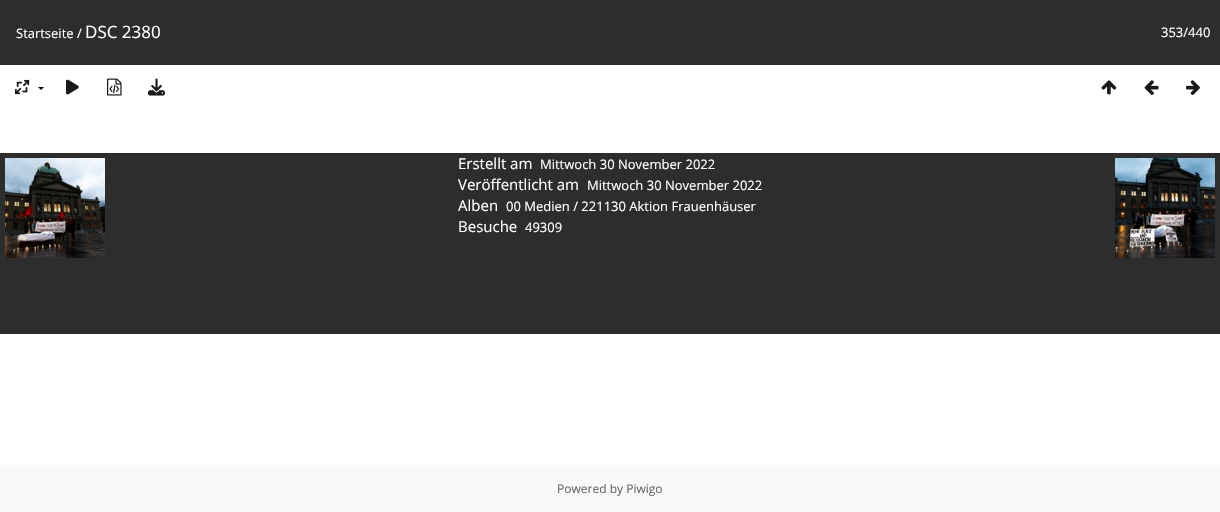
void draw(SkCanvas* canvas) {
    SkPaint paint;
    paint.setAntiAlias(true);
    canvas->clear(0xFFFFFFFF);
    paint.setColor(0xFF2D2D2D);
    canvas->drawRect(SkRect::MakeXYWH(0, 0, 1220, 65), paint);
    SkFont font1(fontMgr->matchFamilyStyle("Open Sans", SkFontStyle::Normal()), 13);
    font1.setSubpixel(true);
    paint.setColor(0xFFFFFFFF);
    canvas->drawString("Startseite /", 16, 38, font1, paint);
    SkFont font2(fontMgr->matchFamilyStyle("Open Sans", SkFontStyle::Normal()), 17);
    font2.setSubpixel(true);
    canvas->drawString("DSC 2380", 85, 38, font2, paint);
    canvas->drawString("353/440", 1161, 37, font1, paint);
    canvas->drawImageRect(SkImages::DeferredFromEncodedData(SkData::MakeFromFileName("img1.png")), SkRect::MakeXYWH(15, 79, 15, 16), SkSamplingOptions());
    paint.setColor(0xFF000000);
    canvas->drawPath(SkPathBuilder().moveTo(38, 87).lineTo(44, 87).lineTo(41, 90).close().detach(), paint);
    canvas->drawImageRect(SkImages::DeferredFromEncodedData(SkData::MakeFromFileName("img2.png")), SkRect::MakeXYWH(66, 79, 13, 16), SkSamplingOptions());
    canvas->drawImageRect(SkImages::DeferredFromEncodedData(SkData::MakeFromFileName("img3.png")), SkRect::MakeXYWH(107, 78, 15, 18), SkSamplingOptions());
    canvas->drawImageRect(SkImages::DeferredFromEncodedData(SkData::MakeFromFileName("img4.png")), SkRect::MakeXYWH(148, 78, 17, 18), SkSamplingOptions());
    canvas->drawImageRect(SkImages::DeferredFromEncodedData(SkData::MakeFromFileName("img5.png")), SkRect::MakeXYWH(1101, 80, 16, 15), SkSamplingOptions());
    canvas->drawImageRect(SkImages::DeferredFromEncodedData(SkData::MakeFromFileName("img6.png")), SkRect::MakeXYWH(1144, 80, 15, 15), SkSamplingOptions());
    canvas->drawImageRect(SkImages::DeferredFromEncodedData(SkData::MakeFromFileName("img7.png")), SkRect::MakeXYWH(1186, 80, 14, 15), SkSamplingOptions());
    paint.setColor(0xFF2D2D2D);
    canvas->drawRect(SkRect::MakeXYWH(0, 153, 1220, 181), paint);
    SkFont font3(fontMgr->matchFamilyStyle("Open Sans", SkFontStyle::Normal()), 15);
    font3.setSubpixel(true);
    paint.setColor(0xFFFFFFFF);
    canvas->drawString("Erstellt am", 458, 169, font3, paint);
    canvas->drawString("Mittwoch 30 November 2022", 540, 169, font1, paint);
    canvas->drawString("Veröffentlicht am", 458, 190, font3, paint);
    canvas->drawString("Mittwoch 30 November 2022", 587, 190, font1, paint);
    canvas->drawString("Alben", 458, 211, font3, paint);
    canvas->drawString("00 Medien / 221130 Aktion Frauenhäuser", 506, 211, font1, paint);
    canvas->drawString("Besuche", 458, 232, font3, paint);
    canvas->drawString("49309", 525, 232, font1, paint);
    canvas->drawImageRect(SkImages::DeferredFromEncodedData(SkData::MakeFromFileName("img8.png")), SkRect::MakeXYWH(5, 158, 100, 100), SkSamplingOptions());
    canvas->drawImageRect(SkImages::DeferredFromEncodedData(SkData::MakeFromFileName("img9.png")), SkRect::MakeXYWH(1115, 158, 100, 100), SkSamplingOptions());
    paint.setColor(0xFFF9F9F9);
    canvas->drawRect(SkRect::MakeXYWH(0, 465, 1220, 47), paint);
    SkFont font4(fontMgr->matchFamilyStyle("Open Sans", SkFontStyle::Normal()), 12);
    font4.setSubpixel(true);
    paint.setColor(0xFF666666);
    canvas->drawString("Powered by Piwigo", 557, 493, font4, paint);
}
